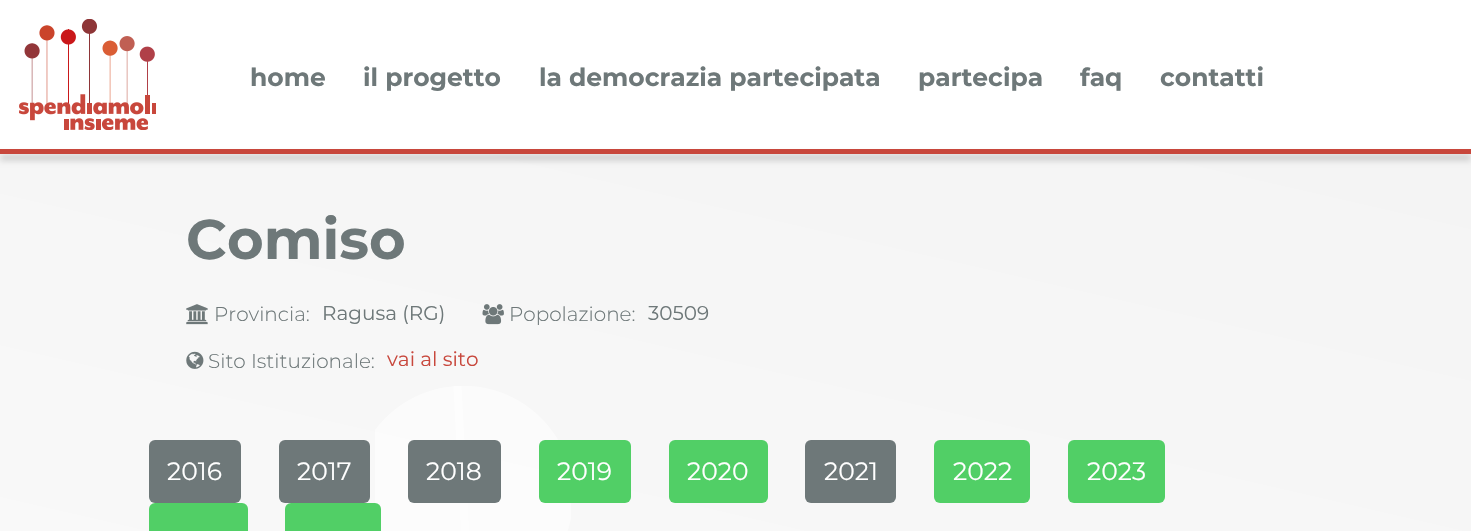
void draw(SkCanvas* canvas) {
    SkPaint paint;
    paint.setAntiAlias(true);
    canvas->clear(0xFFFFFFFF);
    canvas->drawImageRect(SkImages::DeferredFromEncodedData(SkData::MakeFromFileName("img1.png")), SkRect::MakeXYWH(19, 19, 137, 111), SkSamplingOptions());
    SkFont font1(fontMgr->matchFamilyStyle("Montserrat", SkFontStyle::Bold()), 25);
    font1.setSubpixel(true);
    paint.setColor(0xFF6E7879);
    canvas->drawString("home", 250, 86, font1, paint);
    canvas->drawString("il progetto", 363, 86, font1, paint);
    canvas->drawString("la democrazia partecipata", 539, 86, font1, paint);
    canvas->drawString("partecipa", 918, 86, font1, paint);
    canvas->drawString("faq", 1080, 86, font1, paint);
    canvas->drawString("contatti", 1160, 86, font1, paint);
    {
        const SkColor colors[] = {0xFFF4F4F4, 0xFFFFFFFF};
        const float stops[] = {0, 1};
        const SkPoint ends[] = {{918, 26}, {553, 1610}};
        paint.setShader(SkGradientShader::MakeLinear(ends, colors, stops, 2, SkTileMode::kClamp));
        paint.setAlpha(255);
    }
    canvas->drawRect(SkRect::MakeXYWH(0, 154, 1471, 377), paint);
    paint.setShader(nullptr);
    paint.setColor(0x33000000);
    paint.setMaskFilter(SkMaskFilter::MakeBlur(kNormal_SkBlurStyle, 3));
    canvas->drawRect(SkRect::MakeXYWH(0, 155, 1471, 5), paint);
    paint.setMaskFilter(nullptr);
    paint.setColor(0xFFC8473C);
    canvas->drawRect(SkRect::MakeXYWH(0, 149, 1471, 5), paint);
    SkFont font2(fontMgr->matchFamilyStyle("Montserrat", SkFontStyle::Bold()), 56);
    font2.setSubpixel(true);
    paint.setColor(0xFF6E7879);
    canvas->drawString("Comiso", 186, 259, font2, paint);
    canvas->drawImageRect(SkImages::DeferredFromEncodedData(SkData::MakeFromFileName("img2.png")), SkRect::MakeXYWH(186, 304, 22, 21), SkSamplingOptions());
    SkFont font3(fontMgr->matchFamilyStyle("Montserrat", SkFontStyle(300, SkFontStyle::kNormal_Width, SkFontStyle::kUpright_Slant)), 20);
    font3.setSubpixel(true);
    canvas->drawString("Provincia:", 214, 321, font3, paint);
    SkFont font4(fontMgr->matchFamilyStyle("Montserrat", SkFontStyle::Normal()), 20);
    font4.setSubpixel(true);
    canvas->drawString("Ragusa (RG)", 322, 320, font4, paint);
    canvas->drawImageRect(SkImages::DeferredFromEncodedData(SkData::MakeFromFileName("img3.png")), SkRect::MakeXYWH(482, 304, 22, 21), SkSamplingOptions());
    canvas->drawString("Popolazione:", 509, 321, font3, paint);
    canvas->drawString("30509", 648, 320, font4, paint);
    canvas->drawImageRect(SkImages::DeferredFromEncodedData(SkData::MakeFromFileName("img4.png")), SkRect::MakeXYWH(186, 351, 18, 18), SkSamplingOptions());
    canvas->drawString("Sito Istituzionale:", 208, 368, font3, paint);
    paint.setColor(0xFFC8473C);
    canvas->drawString("vai al sito", 387, 366, font4, paint);
    paint.setColor(0xFF6E7879);
    canvas->drawRoundRect(SkRect::MakeXYWH(149, 440, 92, 63), 6, 6, paint);
    SkFont font5(fontMgr->matchFamilyStyle("Montserrat", SkFontStyle::Normal()), 25);
    font5.setSubpixel(true);
    paint.setColor(0xFFFFFFFF);
    canvas->drawString("2016", 167, 480, font5, paint);
    paint.setColor(0xFF6E7879);
    canvas->drawRoundRect(SkRect::MakeXYWH(279, 440, 91, 63), 6, 6, paint);
    paint.setColor(0xFFFFFFFF);
    canvas->drawString("2017", 297, 480, font5, paint);
    canvas->drawImageRect(SkImages::DeferredFromEncodedData(SkData::MakeFromFileName("img5.png")), SkRect::MakeXYWH(375, 386, 196, 145), SkSamplingOptions());
    paint.setColor(0xFF6E7879);
    canvas->drawRoundRect(SkRect::MakeXYWH(408, 440, 93, 63), 6, 6, paint);
    paint.setColor(0xFFFFFFFF);
    canvas->drawString("2018", 426, 480, font5, paint);
    paint.setColor(0xFF51CF66);
    canvas->drawRoundRect(SkRect::MakeXYWH(539, 440, 92, 63), 6, 6, paint);
    paint.setColor(0xFFFFFFFF);
    canvas->drawString("2019", 557, 480, font5, paint);
    paint.setColor(0xFF51CF66);
    canvas->drawRoundRect(SkRect::MakeXYWH(669, 440, 99, 63), 6, 6, paint);
    paint.setColor(0xFFFFFFFF);
    canvas->drawString("2020", 687, 480, font5, paint);
    paint.setColor(0xFF6E7879);
    canvas->drawRoundRect(SkRect::MakeXYWH(805, 440, 91, 63), 6, 6, paint);
    paint.setColor(0xFFFFFFFF);
    canvas->drawString("2021", 824, 480, font5, paint);
    paint.setColor(0xFF51CF66);
    canvas->drawRoundRect(SkRect::MakeXYWH(934, 440, 96, 63), 6, 6, paint);
    paint.setColor(0xFFFFFFFF);
    canvas->drawString("2022", 953, 480, font5, paint);
    paint.setColor(0xFF51CF66);
    canvas->drawRoundRect(SkRect::MakeXYWH(1068, 440, 97, 63), 6, 6, paint);
    paint.setColor(0xFFFFFFFF);
    canvas->drawString("2023", 1087, 480, font5, paint);
    paint.setColor(0xFF51CF66);
    canvas->drawRoundRect(SkRect::MakeXYWH(149, 503, 99, 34), 6, 6, paint);
    canvas->drawRoundRect(SkRect::MakeXYWH(285, 503, 96, 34), 6, 6, paint);
}
